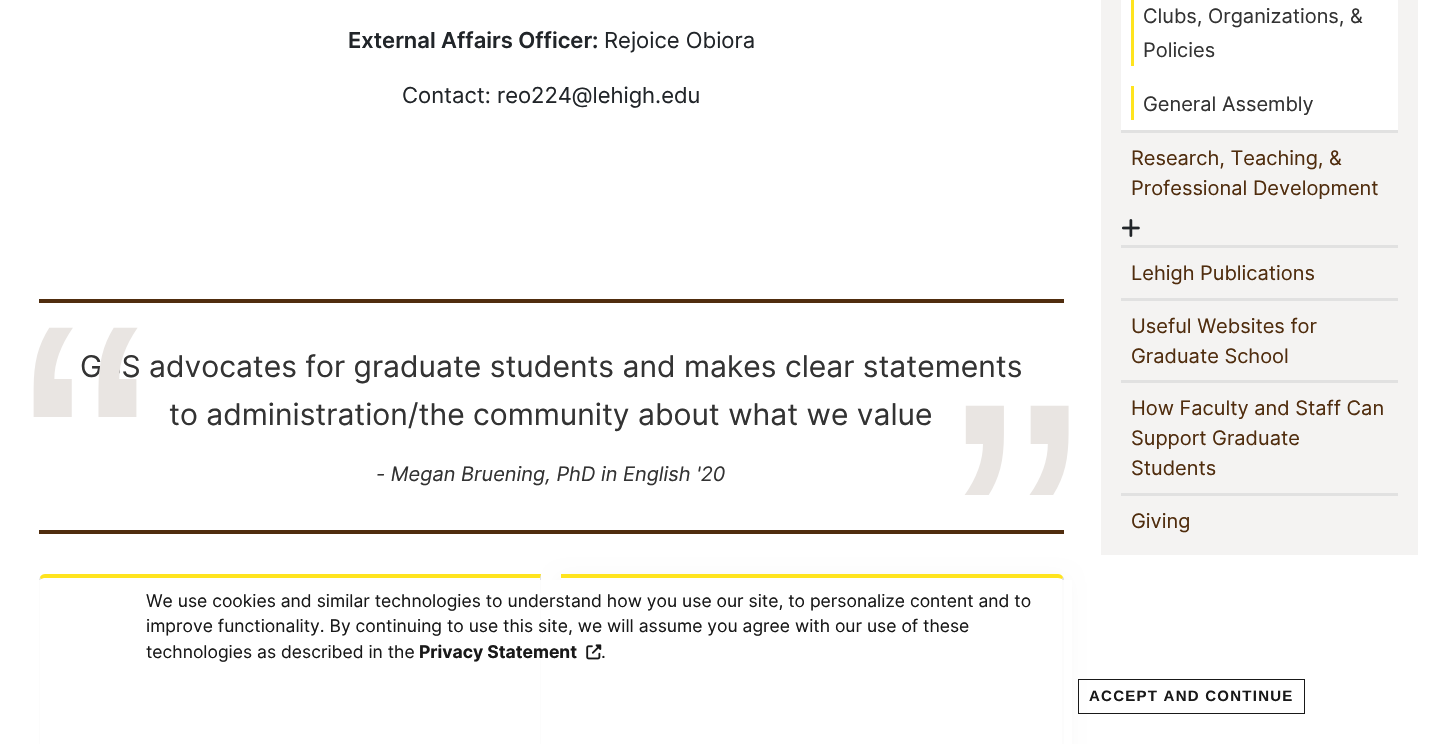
void draw(SkCanvas* canvas) {
    SkPaint paint;
    paint.setAntiAlias(true);
    auto spacedText = [&](const char* s, float x, float y, const SkFont& font, const SkPaint& ink, float letter, float word) {
        std::vector<SkGlyphID> glyphs(font.countText(s, strlen(s), SkTextEncoding::kUTF8));
        std::vector<float> xs(glyphs.size());
        font.textToGlyphs(s, strlen(s), SkTextEncoding::kUTF8, glyphs);
        font.getXPos(glyphs, xs, x);
        float extra = 0;
        for (size_t i = 0; i < glyphs.size(); i++) {
            xs[i] += extra;
            extra += letter + word * (glyphs[i] == font.unicharToGlyph(' '));
        }
        canvas->drawTextBlob(SkTextBlob::MakeFromPosHGlyphs(glyphs, xs, y, font), 0, 0, ink);
    };
    canvas->clear(0xFFFFFFFF);
    SkFont font1(fontMgr->matchFamilyStyle("Inter", SkFontStyle(600, SkFontStyle::kNormal_Width, SkFontStyle::kUpright_Slant)), 22);
    font1.setSubpixel(true);
    paint.setColor(0xFF212529);
    canvas->drawString("External Affairs Officer:", 348, 48, font1, paint);
    SkFont font2(fontMgr->matchFamilyStyle("Inter", SkFontStyle::Normal()), 22);
    font2.setSubpixel(true);
    canvas->drawString("Rejoice Obiora", 604, 48, font2, paint);
    canvas->drawString("Contact: reo224@lehigh.edu", 402, 103, font2, paint);
    paint.setColor(0xFF502D0E);
    canvas->drawRect(SkRect::MakeXYWH(39, 299, 1025, 4), paint);
    canvas->drawRect(SkRect::MakeXYWH(39, 530, 1025, 4), paint);
    SkFont font3(fontMgr->matchFamilyStyle("Inter", SkFontStyle::Normal()), 30);
    font3.setSubpixel(true);
    paint.setColor(0xFF333333);
    canvas->drawString("GSS advocates for graduate students and makes clear statements", 80, 377, font3, paint);
    SkFont font4(fontMgr->matchFamilyStyle("Liberation Sans", SkFontStyle::Normal()), 400);
    font4.setSubpixel(true);
    paint.setColor(0xFFE9E5E2);
    canvas->drawString("“", 19, 603, font4, paint);
    paint.setColor(0xFF333333);
    canvas->drawString("to administration/the community about what we value", 169, 425, font3, paint);
    SkFont font5(fontMgr->matchFamilyStyle("Inter", SkFontStyle::Italic()), 20);
    font5.setSubpixel(true);
    canvas->drawString("- Megan Bruening, PhD in English '20", 376, 481, font5, paint);
    paint.setColor(0xFFE9E5E2);
    canvas->drawString("”", 950, 681, font4, paint);
    paint.setColor(0xFFFFE41E);
    canvas->drawPath(SkPathBuilder().moveTo(45, 574).cubicTo(43, 574, 41, 575, 40, 577).lineTo(41, 579).lineTo(44, 578).lineTo(540, 578).lineTo(541, 574).close().detach(), paint);
    paint.setColor(0x1F000000);
    canvas->drawPath(SkPathBuilder().moveTo(541, 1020).lineTo(541, 574).lineTo(540, 578).lineTo(540, 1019).close().detach(), paint);
    canvas->drawPath(SkPathBuilder().moveTo(40, 577).lineTo(39, 580).lineTo(39, 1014).cubicTo(39, 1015, 40, 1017, 41, 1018).lineTo(41, 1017).cubicTo(40, 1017, 40, 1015, 40, 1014).lineTo(40, 580).lineTo(41, 579).close().detach(), paint);
    paint.setColor(0xFFF0F0F0);
    paint.setMaskFilter(SkMaskFilter::MakeBlur(kNormal_SkBlurStyle, 9.5f));
    canvas->drawRoundRect(SkRect::MakeXYWH(561, 580, 503, 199), 6, 6, paint);
    paint.setMaskFilter(nullptr);
    paint.setColor(0xFFFFFFFF);
    canvas->drawPath(SkPathBuilder().moveTo(561, 574).lineTo(1058, 574).cubicTo(1061.5f, 574, 1064, 576.5f, 1064, 580).lineTo(1064, 744).cubicTo(1064, 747.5f, 1061.5f, 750, 1058, 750).lineTo(561, 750).close().detach(), paint);
    paint.setColor(0xFFFFE41E);
    canvas->drawPath(SkPathBuilder().moveTo(561, 578).lineTo(561, 574).lineTo(1058, 574).cubicTo(1060, 574, 1062, 575, 1063, 577).lineTo(1062, 579).cubicTo(1061, 579, 1060, 578, 1058, 578).close().detach(), paint);
    paint.setColor(0x1F000000);
    canvas->drawPath(SkPathBuilder().moveTo(1061, 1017).lineTo(1062, 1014).lineTo(1062, 579).lineTo(1063, 577).lineTo(1064, 578).lineTo(1064, 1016).lineTo(1062, 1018).close().detach(), paint);
    paint.setColor(0xFFF4F3F2);
    canvas->drawRect(SkRect::MakeXYWH(1101, 0, 317, 555), paint);
    paint.setColor(0xFFE1E1E1);
    canvas->drawRect(SkRect::MakeXYWH(1121, 130, 277, 3), paint);
    paint.setColor(0xFFFFFFFF);
    canvas->drawRect(SkRect::MakeXYWH(1121, 0, 277, 130), paint);
    paint.setColor(0xFFFFE41E);
    canvas->drawRect(SkRect::MakeXYWH(1131, 0, 3, 66), paint);
    SkFont font6(fontMgr->matchFamilyStyle("Inter", SkFontStyle::Normal()), 20);
    font6.setSubpixel(true);
    paint.setColor(0xFF333333);
    canvas->drawString("Clubs, Organizations, &", 1143, 23, font6, paint);
    canvas->drawString("Policies", 1143, 57, font6, paint);
    paint.setColor(0xFFFFE41E);
    canvas->drawRect(SkRect::MakeXYWH(1131, 86, 3, 34), paint);
    paint.setColor(0xFF333333);
    canvas->drawString("General Assembly", 1143, 111, font6, paint);
    paint.setColor(0xFFE1E1E1);
    canvas->drawRect(SkRect::MakeXYWH(1121, 245, 277, 3), paint);
    paint.setColor(0xFF502D0E);
    canvas->drawString("Research, Teaching, &", 1131, 165, font6, paint);
    canvas->drawString("Professional Development", 1131, 195, font6, paint);
    canvas->drawImageRect(SkImages::DeferredFromEncodedData(SkData::MakeFromFileName("img1.png")), SkRect::MakeXYWH(1122, 219, 18, 18), SkSamplingOptions());
    paint.setColor(0xFFE1E1E1);
    canvas->drawRect(SkRect::MakeXYWH(1121, 298, 277, 3), paint);
    paint.setColor(0xFF502D0E);
    canvas->drawString("Lehigh Publications", 1131, 280, font6, paint);
    paint.setColor(0xFFE1E1E1);
    canvas->drawRect(SkRect::MakeXYWH(1121, 380, 277, 3), paint);
    paint.setColor(0xFF502D0E);
    canvas->drawString("Useful Websites for", 1131, 333, font6, paint);
    canvas->drawString("Graduate School", 1131, 363, font6, paint);
    paint.setColor(0xFFE1E1E1);
    canvas->drawRect(SkRect::MakeXYWH(1121, 493, 277, 3), paint);
    paint.setColor(0xFF502D0E);
    canvas->drawString("How Faculty and Staff Can", 1131, 415, font6, paint);
    canvas->drawString("Support Graduate", 1131, 445, font6, paint);
    canvas->drawString("Students", 1131, 475, font6, paint);
    canvas->drawString("Giving", 1131, 528, font6, paint);
    paint.setColor(0xE6FFFFFF);
    canvas->drawRect(SkRect::MakeXYWH(39, 580, 1033, 164), paint);
    SkFont font7(fontMgr->matchFamilyStyle("Inter", SkFontStyle::Normal()), 17.5f);
    font7.setSubpixel(true);
    paint.setColor(0xFF191919);
    canvas->drawString("We use cookies and similar technologies to understand how you use our site, to personalize content and to", 146, 607, font7, paint);
    canvas->drawString("improve functionality. By continuing to use this site, we will assume you agree with our use of these", 146, 632, font7, paint);
    canvas->drawString("technologies as described in the", 146, 658, font7, paint);
    SkFont font8(fontMgr->matchFamilyStyle("Inter", SkFontStyle::Bold()), 17.5f);
    font8.setSubpixel(true);
    canvas->drawString("Privacy Statement", 419, 658, font8, paint);
    canvas->drawImageRect(SkImages::DeferredFromEncodedData(SkData::MakeFromFileName("img2.png")), SkRect::MakeXYWH(586, 644, 16, 16), SkSamplingOptions());
    canvas->drawString(".", 601, 658, font7, paint);
    paint.setStyle(SkPaint::kStroke_Style);
    paint.setStrokeWidth(1);
    canvas->drawRect(SkRect::MakeXYWH(1078.5f, 679.5f, 226, 34), paint);
    SkFont font9(fontMgr->matchFamilyStyle("Liberation Sans", SkFontStyle::Bold()), 15);
    font9.setSubpixel(true);
    paint.setStyle(SkPaint::kFill_Style);
    spacedText("ACCEPT AND CONTINUE", 1089, 701, font9, paint, 1.25f, 0);
}
